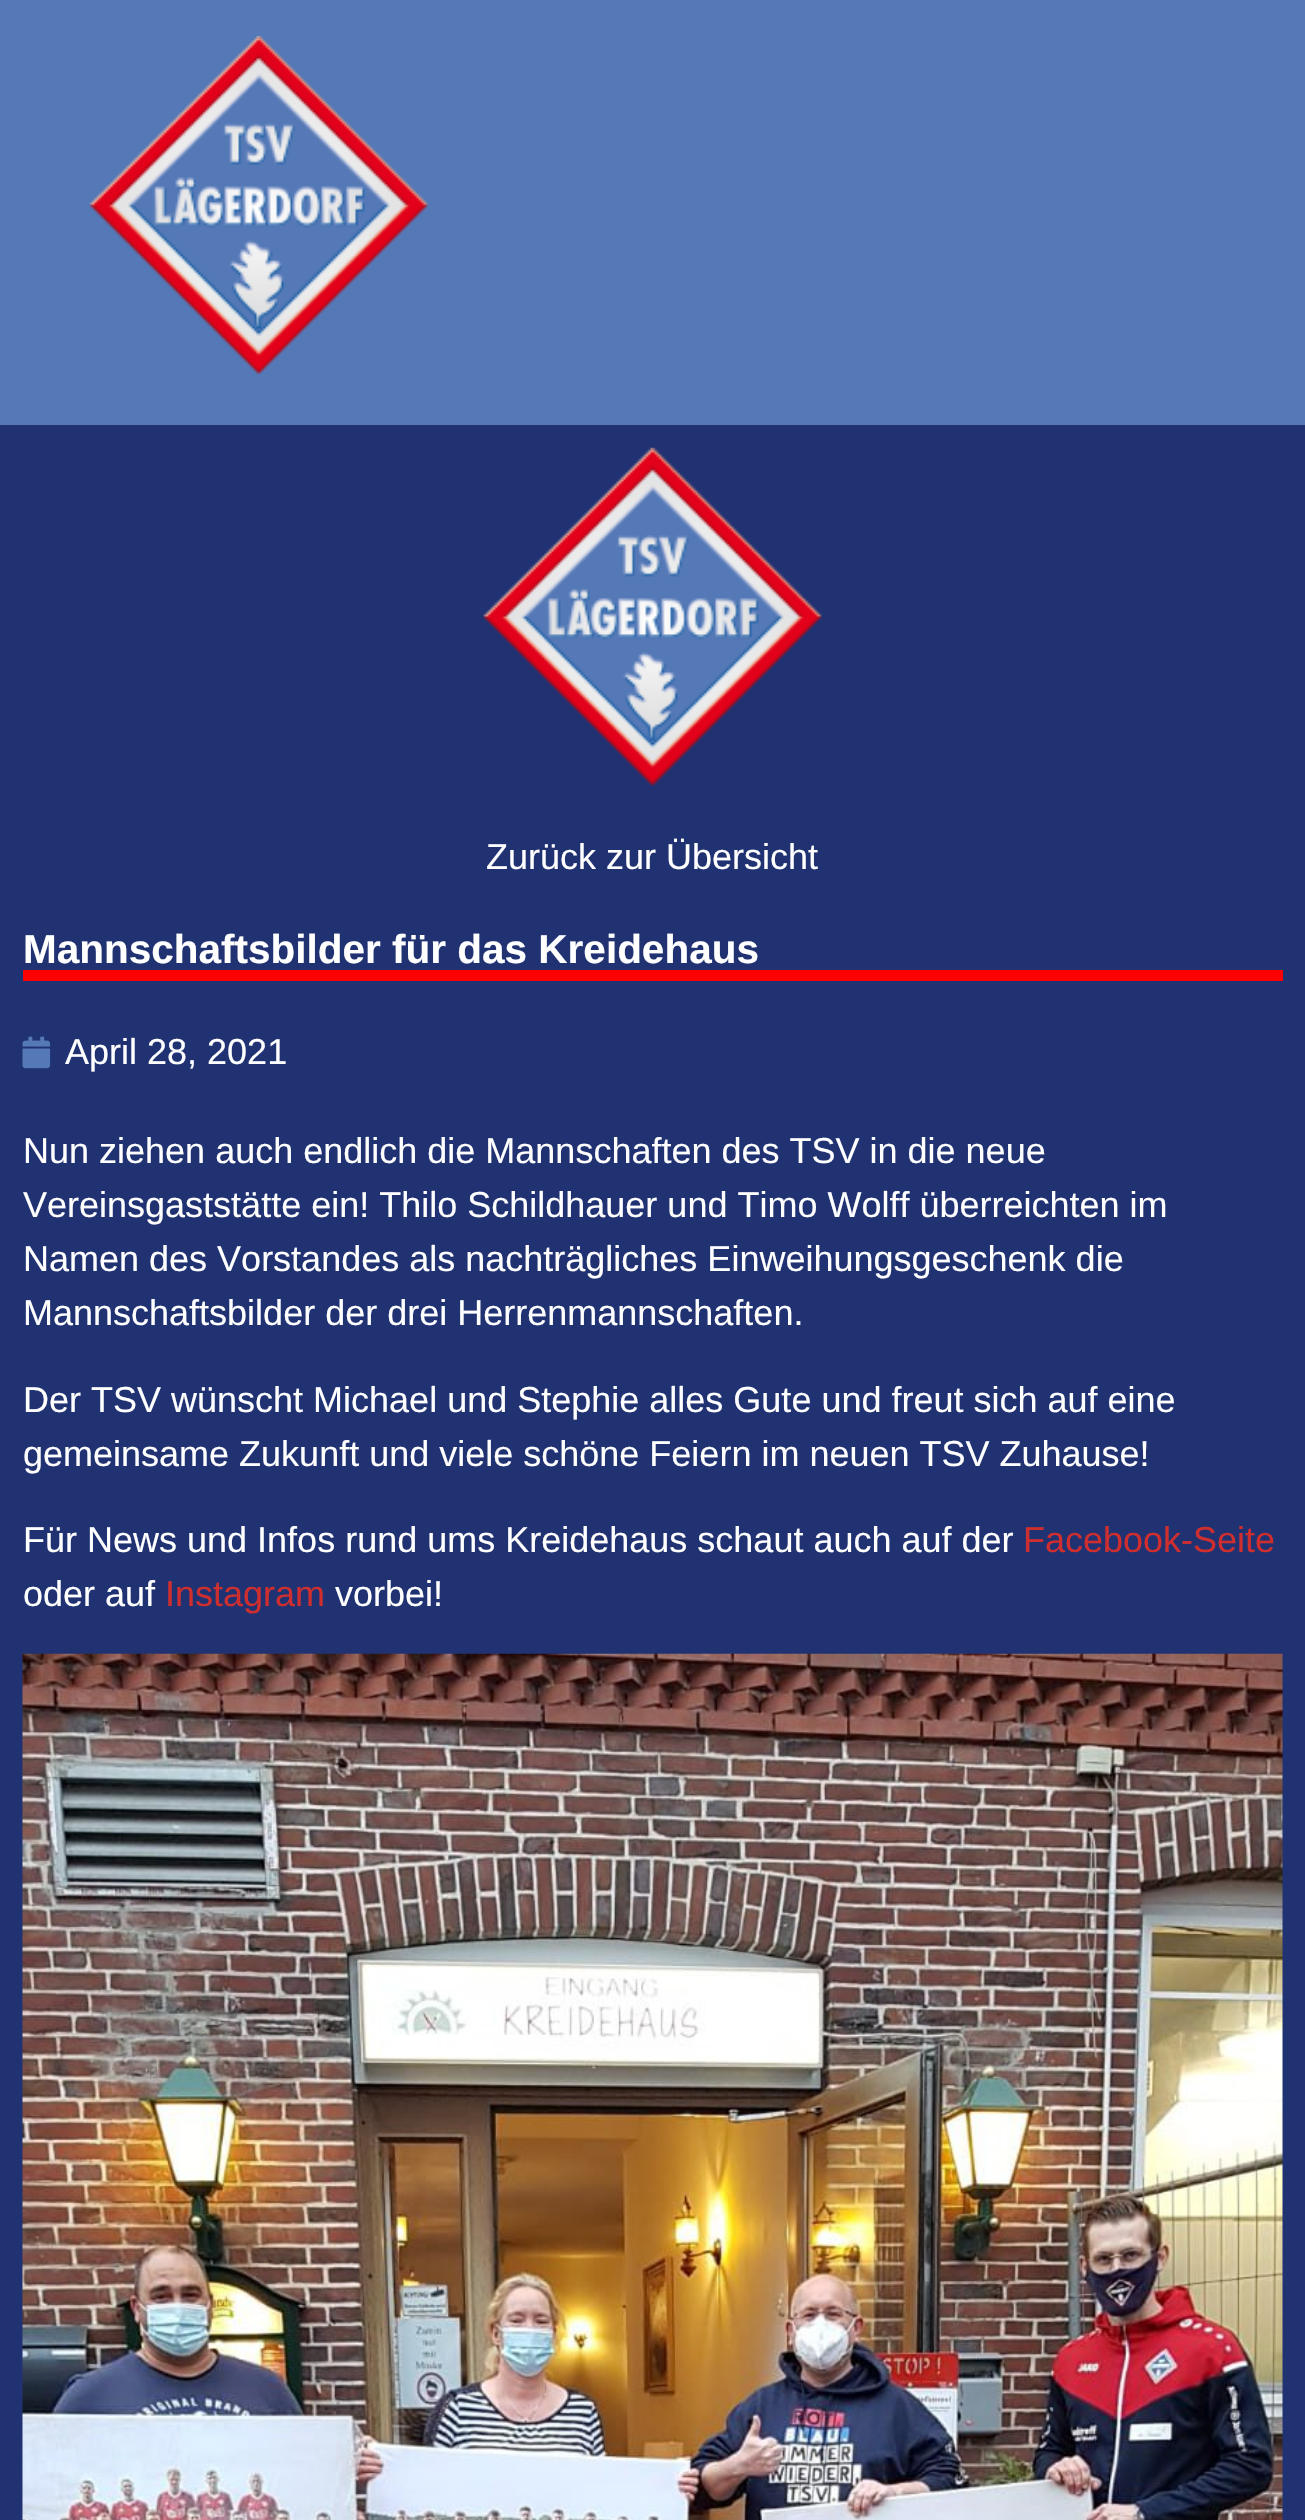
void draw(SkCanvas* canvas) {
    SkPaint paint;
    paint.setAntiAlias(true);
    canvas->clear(0xFF5479B6);
    canvas->drawImageRect(SkImages::DeferredFromEncodedData(SkData::MakeFromFileName("img1.png")), SkRect::MakeXYWH(90, 36, 338, 338), SkSamplingOptions());
    paint.setColor(0xFF213273);
    canvas->drawRect(SkRect::MakeXYWH(0, 425, 1305, 2095), paint);
    canvas->drawImageRect(SkImages::DeferredFromEncodedData(SkData::MakeFromFileName("img2.png")), SkRect::MakeXYWH(483, 447, 339, 339), SkSamplingOptions());
    SkFont font1(fontMgr->matchFamilyStyle("Liberation Sans", SkFontStyle::Normal()), 36);
    font1.setSubpixel(true);
    paint.setColor(0xFFFFFFFF);
    canvas->drawString("Zurück zur Übersicht", 486, 869, font1, paint);
    paint.setColor(0xFFFF0000);
    canvas->drawRect(SkRect::MakeXYWH(23, 970, 1260, 11), paint);
    SkFont font2(fontMgr->matchFamilyStyle("Liberation Sans", SkFontStyle::Bold()), 40.5f);
    font2.setSubpixel(true);
    paint.setColor(0xFFFFFFFF);
    canvas->drawString("Mannschaftsbilder für das Kreidehaus", 23, 963, font2, paint);
    canvas->drawImageRect(SkImages::DeferredFromEncodedData(SkData::MakeFromFileName("img3.png")), SkRect::MakeXYWH(22, 1036, 29, 33), SkSamplingOptions());
    canvas->drawString("April 28, 2021", 65, 1064, font1, paint);
    canvas->drawString("Nun ziehen auch endlich die Mannschaften des TSV in die neue", 23, 1163, font1, paint);
    canvas->drawString("Vereinsgaststätte ein! Thilo Schildhauer und Timo Wolff überreichten im", 23, 1217, font1, paint);
    canvas->drawString("Namen des Vorstandes als nachträgliches Einweihungsgeschenk die", 23, 1271, font1, paint);
    canvas->drawString("Mannschaftsbilder der drei Herrenmannschaften.", 23, 1325, font1, paint);
    canvas->drawString("Der TSV wünscht Michael und Stephie alles Gute und freut sich auf eine", 23, 1412, font1, paint);
    canvas->drawString("gemeinsame Zukunft und viele schöne Feiern im neuen TSV Zuhause!", 23, 1466, font1, paint);
    canvas->drawString("Für News und Infos rund ums Kreidehaus schaut auch auf der", 23, 1552, font1, paint);
    paint.setColor(0xFFCF2E2E);
    canvas->drawString("Facebook-Seite", 1023, 1552, font1, paint);
    paint.setColor(0xFFFFFFFF);
    canvas->drawString("oder auf", 23, 1606, font1, paint);
    paint.setColor(0xFFCF2E2E);
    canvas->drawString("Instagram", 165, 1606, font1, paint);
    paint.setColor(0xFFFFFFFF);
    canvas->drawString("vorbei!", 335, 1606, font1, paint);
    canvas->drawImageRect(SkImages::DeferredFromEncodedData(SkData::MakeFromFileName("img4.png")), SkRect::MakeXYWH(22, 1653, 1261, 867), SkSamplingOptions());
}
